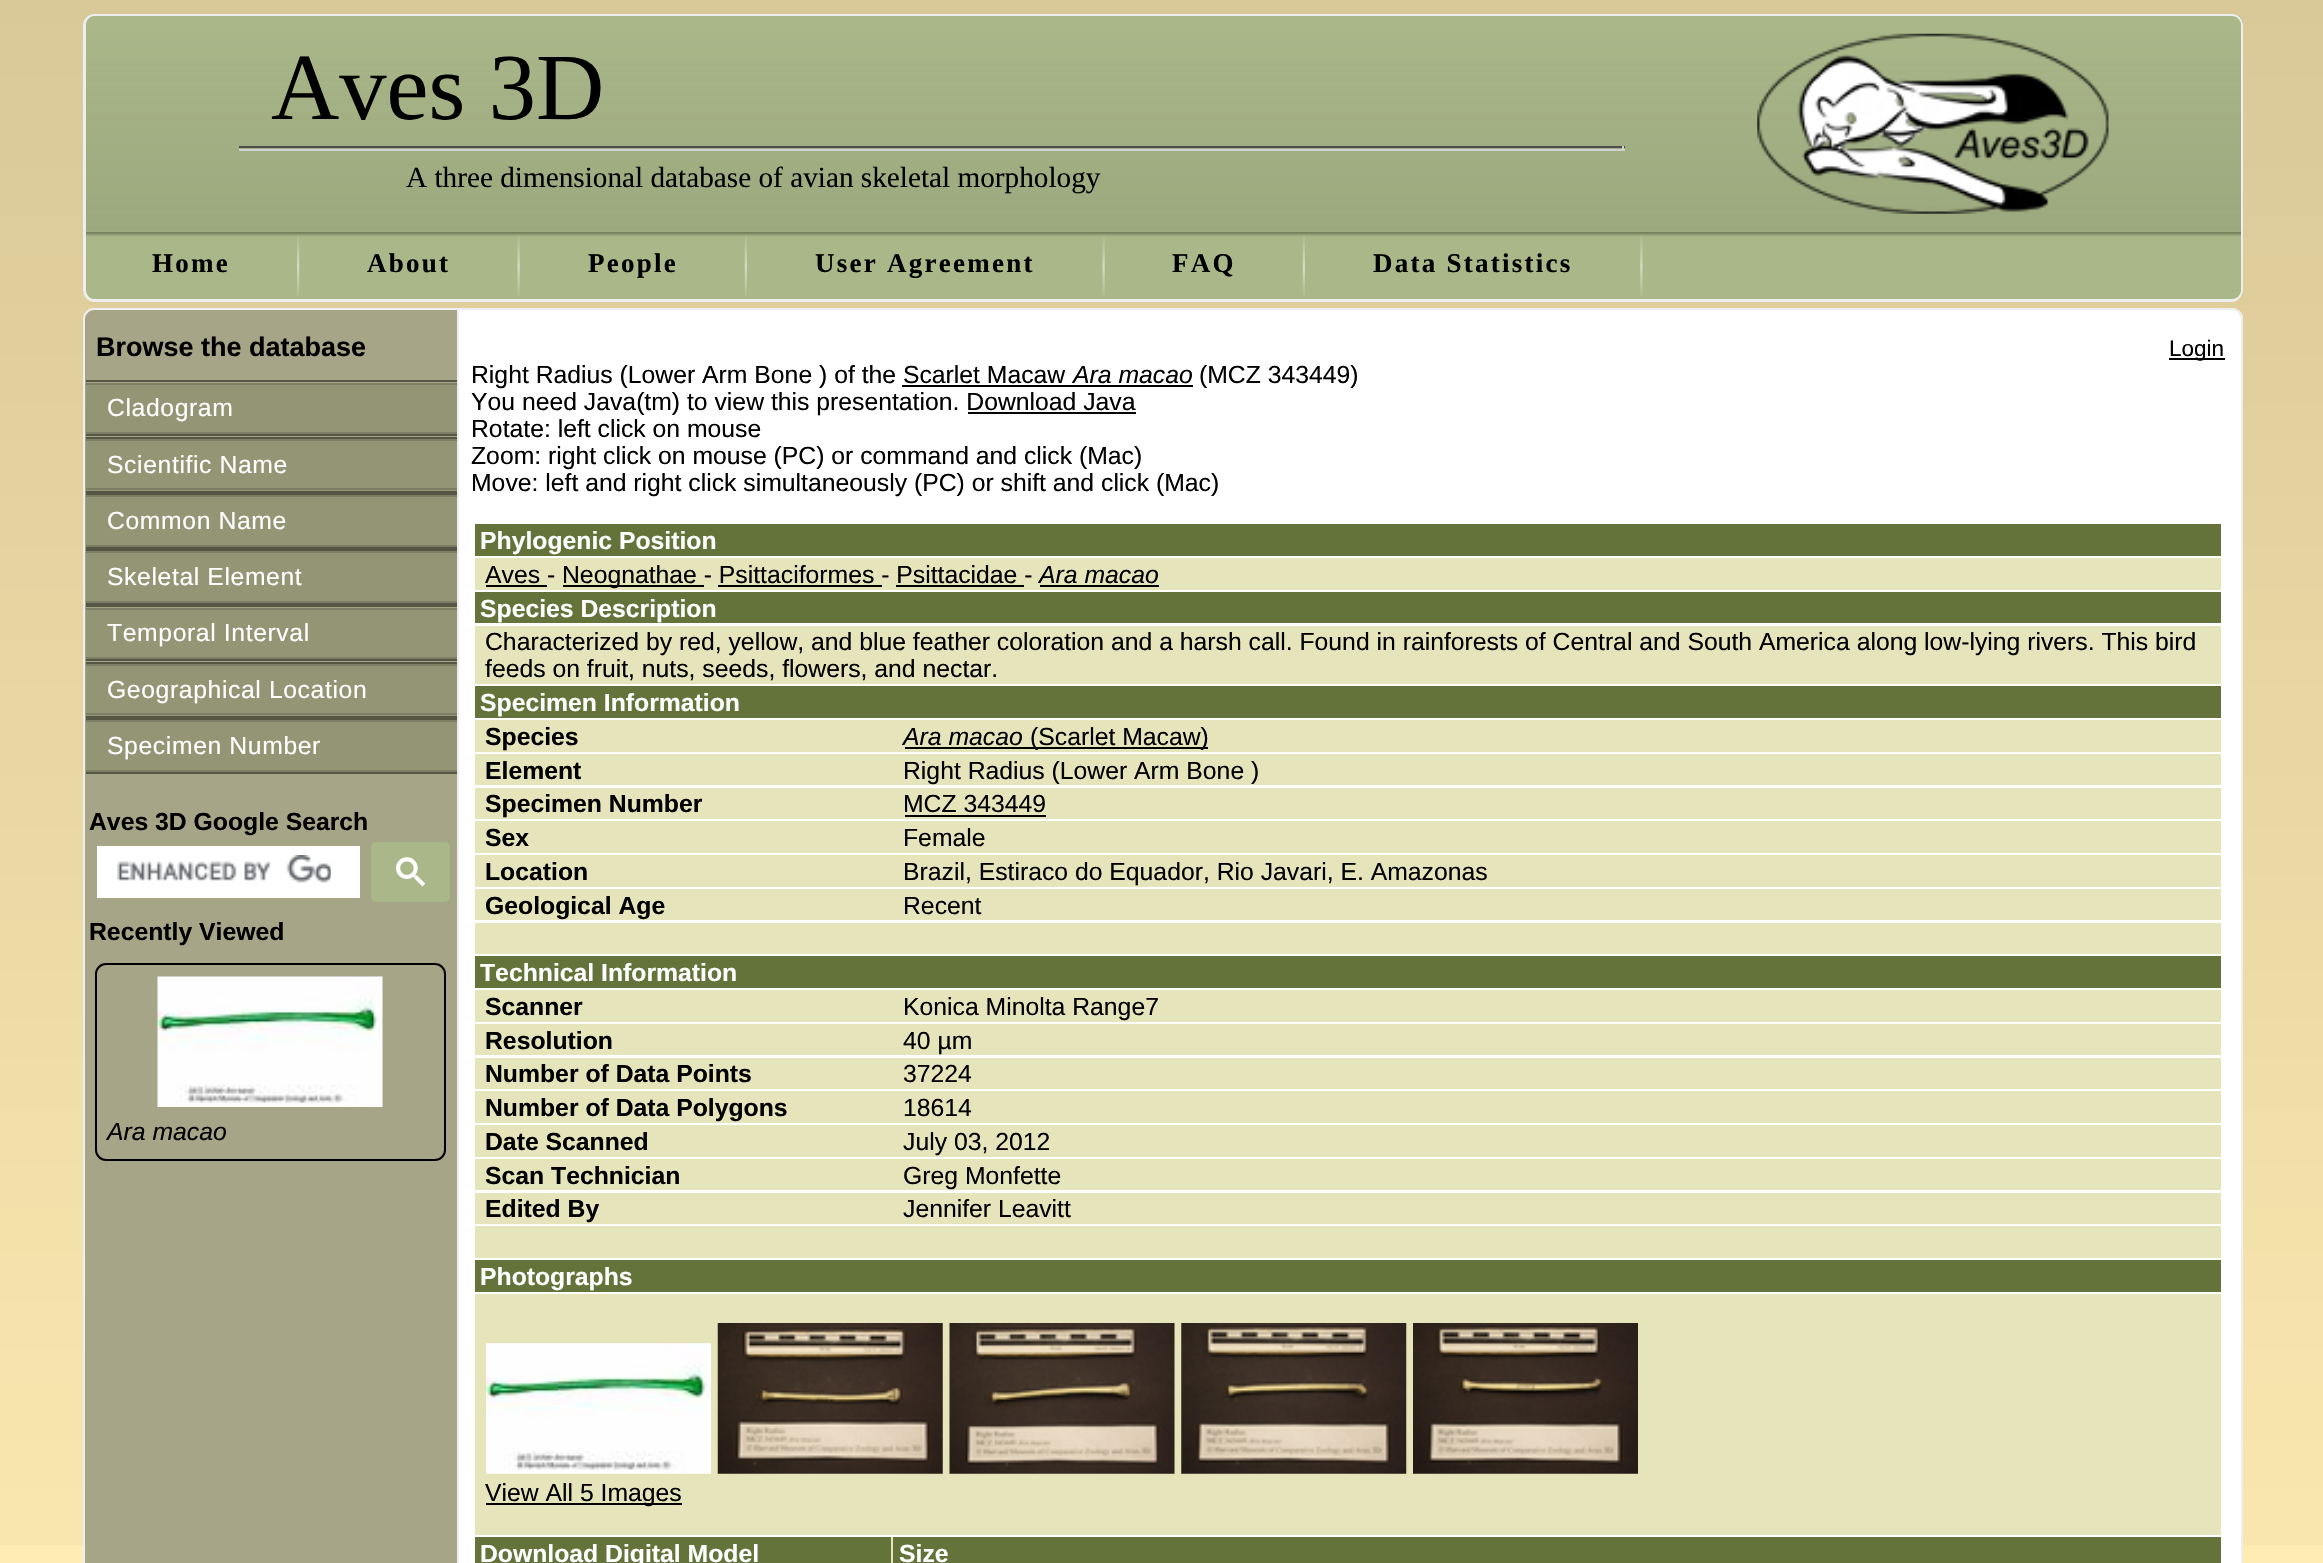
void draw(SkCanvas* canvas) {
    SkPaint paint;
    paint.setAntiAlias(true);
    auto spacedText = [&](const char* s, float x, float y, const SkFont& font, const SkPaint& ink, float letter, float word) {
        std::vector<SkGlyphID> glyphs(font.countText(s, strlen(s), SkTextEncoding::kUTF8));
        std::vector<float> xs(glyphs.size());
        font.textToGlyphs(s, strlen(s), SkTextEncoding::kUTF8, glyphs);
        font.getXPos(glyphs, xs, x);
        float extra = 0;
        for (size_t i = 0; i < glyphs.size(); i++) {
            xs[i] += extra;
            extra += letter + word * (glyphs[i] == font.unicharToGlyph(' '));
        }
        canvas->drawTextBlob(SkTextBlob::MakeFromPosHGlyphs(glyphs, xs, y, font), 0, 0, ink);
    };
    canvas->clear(0xFFFFECB3);
    canvas->drawImageRect(SkImages::DeferredFromEncodedData(SkData::MakeFromFileName("img1.png")), SkRect::MakeXYWH(0, 0, 2323, 1545), SkSamplingOptions());
    paint.setColor(0xFFAAB789);
    canvas->drawPath(SkPathBuilder().moveTo(94, 14).lineTo(2232, 14).cubicTo(2238, 14, 2243, 19, 2243, 25).lineTo(2243, 232).lineTo(83, 232).lineTo(83, 25).cubicTo(83, 19, 88, 14, 94, 14).close().detach(), paint);
    canvas->drawImageRect(SkImages::DeferredFromEncodedData(SkData::MakeFromFileName("img2.png")), SkRect::MakeXYWH(83, 15, 2160, 217), SkSamplingOptions());
    paint.setColor(0xFFEEEEEE);
    canvas->drawPath(SkPathBuilder(SkPathFillType::kEvenOdd).moveTo(94, 14).lineTo(2232, 14).cubicTo(2238, 14, 2243, 19, 2243, 25).lineTo(2243, 232).lineTo(83, 232).lineTo(83, 25).cubicTo(83, 19, 88, 14, 94, 14).close().moveTo(94, 16).lineTo(2232, 16).cubicTo(2237, 16, 2241, 20, 2241, 25).lineTo(2241, 232).lineTo(86, 232).lineTo(86, 25).cubicTo(86, 20, 90, 16, 94, 16).close().detach(), paint);
    SkFont font1(fontMgr->matchFamilyStyle("Liberation Serif", SkFontStyle::Normal()), 94.5f);
    font1.setSubpixel(true);
    paint.setColor(0xFF000000);
    canvas->drawString("Aves 3D", 271, 119, font1, paint);
    canvas->drawImageRect(SkImages::DeferredFromEncodedData(SkData::MakeFromFileName("img3.png")), SkRect::MakeXYWH(1757, 33, 352, 181), SkSamplingOptions());
    paint.setColor(0xFF4D4D4D);
    canvas->drawRect(SkRect::MakeXYWH(239, 146, 1386, 2), paint);
    paint.setColor(0xFFD0D0D0);
    canvas->drawRect(SkRect::MakeXYWH(1622, 146, 2, 5), paint);
    canvas->drawRect(SkRect::MakeXYWH(239, 149, 1386, 2), paint);
    SkFont font2(fontMgr->matchFamilyStyle("Liberation Serif", SkFontStyle::Normal()), 29.25f);
    font2.setSubpixel(true);
    paint.setColor(0xFF000000);
    canvas->drawString("A three dimensional database of avian skeletal morphology", 406, 187, font2, paint);
    canvas->drawImageRect(SkImages::DeferredFromEncodedData(SkData::MakeFromFileName("img4.png")), SkRect::MakeXYWH(83, 231, 2161, 69), SkSamplingOptions());
    paint.setColor(0xFFEEEEEE);
    canvas->drawPath(SkPathBuilder(SkPathFillType::kEvenOdd).moveTo(83, 232).lineTo(2243, 232).lineTo(2243, 290).cubicTo(2243, 296, 2238, 302, 2232, 302).lineTo(94, 302).cubicTo(88, 302, 83, 296, 83, 290).close().moveTo(86, 232).lineTo(2241, 232).lineTo(2241, 290).cubicTo(2241, 295, 2237, 299, 2232, 299).lineTo(94, 299).cubicTo(90, 299, 86, 295, 86, 290).close().detach(), paint);
    SkFont font3(fontMgr->matchFamilyStyle("Liberation Serif", SkFontStyle::Bold()), 27);
    font3.setSubpixel(true);
    paint.setColor(0xFF000000);
    spacedText("Home", 152, 272, font3, paint, 2.25f, 0);
    canvas->drawImageRect(SkImages::DeferredFromEncodedData(SkData::MakeFromFileName("img5.png")), SkRect::MakeXYWH(297, 235, 3, 63), SkSamplingOptions());
    spacedText("About", 367, 272, font3, paint, 2.25f, 0);
    canvas->drawImageRect(SkImages::DeferredFromEncodedData(SkData::MakeFromFileName("img6.png")), SkRect::MakeXYWH(517, 235, 3, 63), SkSamplingOptions());
    spacedText("People", 588, 272, font3, paint, 2.25f, 0);
    canvas->drawImageRect(SkImages::DeferredFromEncodedData(SkData::MakeFromFileName("img7.png")), SkRect::MakeXYWH(744, 235, 3, 63), SkSamplingOptions());
    spacedText("User Agreement", 815, 272, font3, paint, 2.25f, 0);
    canvas->drawImageRect(SkImages::DeferredFromEncodedData(SkData::MakeFromFileName("img6.png")), SkRect::MakeXYWH(1102, 235, 3, 63), SkSamplingOptions());
    spacedText("FAQ", 1172, 272, font3, paint, 2.25f, 0);
    canvas->drawImageRect(SkImages::DeferredFromEncodedData(SkData::MakeFromFileName("img7.png")), SkRect::MakeXYWH(1302, 235, 3, 63), SkSamplingOptions());
    spacedText("Data Statistics", 1373, 272, font3, paint, 2.25f, 0);
    canvas->drawImageRect(SkImages::DeferredFromEncodedData(SkData::MakeFromFileName("img8.png")), SkRect::MakeXYWH(1640, 235, 3, 63), SkSamplingOptions());
    paint.setColor(0xFFA6A587);
    canvas->drawPath(SkPathBuilder().moveTo(94, 309).lineTo(458, 309).lineTo(458, 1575).lineTo(94, 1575).cubicTo(88.5f, 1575, 84, 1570.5f, 84, 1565).lineTo(84, 319).cubicTo(84, 313.5f, 88.5f, 309, 94, 309).close().detach(), paint);
    paint.setStyle(SkPaint::kStroke_Style);
    paint.setStrokeWidth(2);
    paint.setColor(0xFFEEEEEE);
    canvas->drawPath(SkPathBuilder().moveTo(94, 309).lineTo(458, 309).lineTo(458, 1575).lineTo(94, 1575).cubicTo(88.5f, 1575, 84, 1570.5f, 84, 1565).lineTo(84, 319).cubicTo(84, 313.5f, 88.5f, 309, 94, 309).close().detach(), paint);
    SkFont font4(fontMgr->matchFamilyStyle("Liberation Sans", SkFontStyle::Bold()), 27);
    font4.setSubpixel(true);
    paint.setStyle(SkPaint::kFill_Style);
    paint.setColor(0xFF000000);
    canvas->drawString("Browse the database", 96, 356, font4, paint);
    paint.setColor(0xFF555643);
    canvas->drawRect(SkRect::MakeXYWH(86, 380, 371, 2), paint);
    canvas->drawRect(SkRect::MakeXYWH(86, 434, 371, 2), paint);
    paint.setColor(0xFF949574);
    canvas->drawRect(SkRect::MakeXYWH(86, 385, 371, 47), paint);
    paint.setColor(0xFF7E7E64);
    canvas->drawRect(SkRect::MakeXYWH(86, 383, 371, 2), paint);
    canvas->drawRect(SkRect::MakeXYWH(86, 432, 371, 2), paint);
    SkFont font5(fontMgr->matchFamilyStyle("Liberation Sans", SkFontStyle::Normal()), 24.75f);
    font5.setSubpixel(true);
    paint.setColor(0xFFFFFFFF);
    spacedText("Cladogram", 107, 416, font5, paint, 0.6f, 0);
    paint.setColor(0xFF555643);
    canvas->drawRect(SkRect::MakeXYWH(86, 437, 371, 2), paint);
    canvas->drawRect(SkRect::MakeXYWH(86, 491, 371, 4), paint);
    paint.setColor(0xFF949574);
    canvas->drawRect(SkRect::MakeXYWH(86, 441, 371, 50), paint);
    paint.setColor(0xFF7E7E64);
    canvas->drawRect(SkRect::MakeXYWH(86, 439, 371, 2), paint);
    canvas->drawRect(SkRect::MakeXYWH(86, 488, 371, 2), paint);
    paint.setColor(0xFFFFFFFF);
    spacedText("Scientific Name", 107, 473, font5, paint, 0.6f, 0);
    paint.setColor(0xFF555643);
    canvas->drawRect(SkRect::MakeXYWH(86, 547, 371, 4), paint);
    paint.setColor(0xFF949574);
    canvas->drawRect(SkRect::MakeXYWH(86, 497, 371, 48), paint);
    paint.setColor(0xFF7E7E64);
    canvas->drawRect(SkRect::MakeXYWH(86, 495, 371, 2), paint);
    canvas->drawRect(SkRect::MakeXYWH(86, 545, 371, 2), paint);
    paint.setColor(0xFFFFFFFF);
    spacedText("Common Name", 107, 529, font5, paint, 0.6f, 0);
    paint.setColor(0xFF555643);
    canvas->drawRect(SkRect::MakeXYWH(86, 603, 371, 4), paint);
    paint.setColor(0xFF949574);
    canvas->drawRect(SkRect::MakeXYWH(86, 553, 371, 48), paint);
    paint.setColor(0xFF7E7E64);
    canvas->drawRect(SkRect::MakeXYWH(86, 551, 371, 2), paint);
    canvas->drawRect(SkRect::MakeXYWH(86, 601, 371, 2), paint);
    paint.setColor(0xFFFFFFFF);
    spacedText("Skeletal Element", 107, 585, font5, paint, 0.6f, 0);
    paint.setColor(0xFF555643);
    canvas->drawRect(SkRect::MakeXYWH(86, 659, 371, 2), paint);
    paint.setColor(0xFF949574);
    canvas->drawRect(SkRect::MakeXYWH(86, 610, 371, 47), paint);
    paint.setColor(0xFF7E7E64);
    canvas->drawRect(SkRect::MakeXYWH(86, 608, 371, 2), paint);
    canvas->drawRect(SkRect::MakeXYWH(86, 657, 371, 2), paint);
    paint.setColor(0xFFFFFFFF);
    spacedText("Temporal Interval", 107, 641, font5, paint, 0.6f, 0);
    paint.setColor(0xFF555643);
    canvas->drawRect(SkRect::MakeXYWH(86, 662, 371, 2), paint);
    canvas->drawRect(SkRect::MakeXYWH(86, 716, 371, 4), paint);
    paint.setColor(0xFF949574);
    canvas->drawRect(SkRect::MakeXYWH(86, 666, 371, 50), paint);
    paint.setColor(0xFF7E7E64);
    canvas->drawRect(SkRect::MakeXYWH(86, 664, 371, 2), paint);
    canvas->drawRect(SkRect::MakeXYWH(86, 713, 371, 2), paint);
    paint.setColor(0xFFFFFFFF);
    spacedText("Geographical Location", 107, 698, font5, paint, 0.6f, 0);
    paint.setColor(0xFF555643);
    canvas->drawRect(SkRect::MakeXYWH(86, 772, 371, 2), paint);
    paint.setColor(0xFF949574);
    canvas->drawRect(SkRect::MakeXYWH(86, 722, 371, 48), paint);
    paint.setColor(0xFF7E7E64);
    canvas->drawRect(SkRect::MakeXYWH(86, 720, 371, 2), paint);
    canvas->drawRect(SkRect::MakeXYWH(86, 770, 371, 2), paint);
    paint.setColor(0xFFFFFFFF);
    spacedText("Specimen Number", 107, 754, font5, paint, 0.6f, 0);
    SkFont font6(fontMgr->matchFamilyStyle("Liberation Sans", SkFontStyle::Bold()), 24.75f);
    font6.setSubpixel(true);
    paint.setColor(0xFF000000);
    canvas->drawString("Aves 3D Google Search", 89, 830, font6, paint);
    paint.setColor(0xFFFFFFFF);
    canvas->drawRect(SkRect::MakeXYWH(97, 846, 263, 52), paint);
    canvas->drawImageRect(SkImages::DeferredFromEncodedData(SkData::MakeFromFileName("img9.png")), SkRect::MakeXYWH(117, 855, 214, 28), SkSamplingOptions());
    paint.setColor(0xFFAAB789);
    canvas->drawRoundRect(SkRect::MakeXYWH(372, 843, 77, 58), 4, 4, paint);
    paint.setStyle(SkPaint::kStroke_Style);
    canvas->drawRoundRect(SkRect::MakeXYWH(372, 843, 77, 58), 4, 4, paint);
    canvas->drawImageRect(SkImages::DeferredFromEncodedData(SkData::MakeFromFileName("img10.png")), SkRect::MakeXYWH(396, 857, 29, 30), SkSamplingOptions());
    paint.setStyle(SkPaint::kFill_Style);
    paint.setColor(0xFF000000);
    canvas->drawString("Recently Viewed", 89, 940, font6, paint);
    paint.setStyle(SkPaint::kStroke_Style);
    canvas->drawRoundRect(SkRect::MakeXYWH(96, 964, 349, 196), 10, 10, paint);
    canvas->drawImageRect(SkImages::DeferredFromEncodedData(SkData::MakeFromFileName("img11.png")), SkRect::MakeXYWH(157, 976, 226, 131), SkSamplingOptions());
    SkFont font7(fontMgr->matchFamilyStyle("Liberation Sans", SkFontStyle::Italic()), 24.75f);
    font7.setSubpixel(true);
    paint.setStyle(SkPaint::kFill_Style);
    canvas->drawString("Ara macao", 107, 1140, font7, paint);
    paint.setColor(0xFFFFFFFF);
    canvas->drawPath(SkPathBuilder().moveTo(459, 308).lineTo(2232, 308).cubicTo(2238, 308, 2243, 313, 2243, 319).lineTo(2243, 1563).cubicTo(2243, 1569, 2238, 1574, 2232, 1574).lineTo(459, 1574).close().detach(), paint);
    paint.setColor(0xFFEEEEEE);
    canvas->drawPath(SkPathBuilder(SkPathFillType::kEvenOdd).moveTo(459, 308).lineTo(2232, 308).cubicTo(2238, 308, 2243, 313, 2243, 320).lineTo(2243, 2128).cubicTo(2243, 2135, 2238, 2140, 2232, 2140).lineTo(459, 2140).close().moveTo(459, 310).lineTo(2232, 310).cubicTo(2237, 310, 2241, 315, 2241, 320).lineTo(2241, 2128).cubicTo(2241, 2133, 2237, 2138, 2232, 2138).lineTo(459, 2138).close().detach(), paint);
    paint.setColor(0xFF000000);
    canvas->drawRect(SkRect::MakeXYWH(2169, 358, 56, 2), paint);
    SkFont font8(fontMgr->matchFamilyStyle("Liberation Sans", SkFontStyle::Normal()), 22.5f);
    font8.setSubpixel(true);
    canvas->drawString("Login", 2169, 356, font8, paint);
    canvas->drawString("Right Radius (Lower Arm Bone ) of the Scarlet Macaw", 471, 383, font5, paint);
    canvas->drawString("Ara macao", 1073, 383, font7, paint);
    canvas->drawRect(SkRect::MakeXYWH(902, 385, 291, 2), paint);
    canvas->drawString("(MCZ 343449)", 1199, 383, font5, paint);
    canvas->drawString("You need Java(tm) to view this presentation. Download Java", 471, 410, font5, paint);
    canvas->drawRect(SkRect::MakeXYWH(968, 412, 168, 2), paint);
    canvas->drawString("Rotate: left click on mouse", 471, 437, font5, paint);
    canvas->drawString("Zoom: right click on mouse (PC) or command and click (Mac)", 471, 464, font5, paint);
    canvas->drawString("Move: left and right click simultaneously (PC) or shift and click (Mac)", 471, 491, font5, paint);
    paint.setColor(0xFF637339);
    canvas->drawRect(SkRect::MakeXYWH(475, 524, 1746, 32), paint);
    paint.setColor(0xFFFFFFFF);
    canvas->drawString("Phylogenic Position", 480, 549, font6, paint);
    paint.setColor(0xFFE6E4BA);
    canvas->drawRect(SkRect::MakeXYWH(475, 558, 1746, 32), paint);
    paint.setColor(0xFF000000);
    canvas->drawString("Aves -", 485, 583, font5, paint);
    canvas->drawRect(SkRect::MakeXYWH(486, 585, 61, 2), paint);
    canvas->drawRect(SkRect::MakeXYWH(563, 585, 141, 2), paint);
    canvas->drawString("Neognathae - Psittaciformes - Psittacidae -", 562, 583, font5, paint);
    canvas->drawString("Ara macao", 1039, 583, font7, paint);
    canvas->drawRect(SkRect::MakeXYWH(1040, 585, 119, 2), paint);
    canvas->drawRect(SkRect::MakeXYWH(718, 585, 164, 2), paint);
    canvas->drawRect(SkRect::MakeXYWH(896, 585, 128, 2), paint);
    paint.setColor(0xFF637339);
    canvas->drawRect(SkRect::MakeXYWH(475, 592, 1746, 31), paint);
    paint.setColor(0xFFFFFFFF);
    canvas->drawString("Species Description", 480, 617, font6, paint);
    paint.setColor(0xFFE6E4BA);
    canvas->drawRect(SkRect::MakeXYWH(475, 626, 1746, 58), paint);
    paint.setColor(0xFF000000);
    canvas->drawString("Characterized by red, yellow, and blue feather coloration and a harsh call. Found in rainforests of Central and South America along low-lying rivers. This bird", 485, 650, font5, paint);
    canvas->drawString("feeds on fruit, nuts, seeds, flowers, and nectar.", 485, 677, font5, paint);
    paint.setColor(0xFF637339);
    canvas->drawRect(SkRect::MakeXYWH(475, 686, 1746, 32), paint);
    paint.setColor(0xFFFFFFFF);
    canvas->drawString("Specimen Information", 480, 711, font6, paint);
    paint.setColor(0xFFE6E4BA);
    canvas->drawRect(SkRect::MakeXYWH(475, 720, 1746, 32), paint);
    paint.setColor(0xFF000000);
    canvas->drawString("Species", 485, 745, font6, paint);
    canvas->drawString("Ara macao", 903, 745, font7, paint);
    canvas->drawRect(SkRect::MakeXYWH(905, 747, 303, 2), paint);
    canvas->drawString("(Scarlet Macaw)", 1030, 745, font5, paint);
    paint.setColor(0xFFE6E4BA);
    canvas->drawRect(SkRect::MakeXYWH(475, 754, 1746, 31), paint);
    paint.setColor(0xFF000000);
    canvas->drawString("Element", 485, 779, font6, paint);
    canvas->drawString("Right Radius (Lower Arm Bone )", 903, 779, font5, paint);
    paint.setColor(0xFFE6E4BA);
    canvas->drawRect(SkRect::MakeXYWH(475, 788, 1746, 31), paint);
    paint.setColor(0xFF000000);
    canvas->drawString("Specimen Number", 485, 812, font6, paint);
    canvas->drawString("MCZ 343449", 903, 812, font5, paint);
    canvas->drawRect(SkRect::MakeXYWH(905, 815, 141, 2), paint);
    paint.setColor(0xFFE6E4BA);
    canvas->drawRect(SkRect::MakeXYWH(475, 821, 1746, 32), paint);
    paint.setColor(0xFF000000);
    canvas->drawString("Sex", 485, 846, font6, paint);
    canvas->drawString("Female", 903, 846, font5, paint);
    paint.setColor(0xFFE6E4BA);
    canvas->drawRect(SkRect::MakeXYWH(475, 855, 1746, 32), paint);
    paint.setColor(0xFF000000);
    canvas->drawString("Location", 485, 880, font6, paint);
    canvas->drawString("Brazil, Estiraco do Equador, Rio Javari, E. Amazonas", 903, 880, font5, paint);
    paint.setColor(0xFFE6E4BA);
    canvas->drawRect(SkRect::MakeXYWH(475, 889, 1746, 31), paint);
    paint.setColor(0xFF000000);
    canvas->drawString("Geological Age", 485, 914, font6, paint);
    canvas->drawString("Recent", 903, 914, font5, paint);
    paint.setColor(0xFFE6E4BA);
    canvas->drawRect(SkRect::MakeXYWH(475, 923, 1746, 31), paint);
    paint.setColor(0xFF637339);
    canvas->drawRect(SkRect::MakeXYWH(475, 956, 1746, 32), paint);
    paint.setColor(0xFFFFFFFF);
    canvas->drawString("Technical Information", 480, 981, font6, paint);
    paint.setColor(0xFFE6E4BA);
    canvas->drawRect(SkRect::MakeXYWH(475, 990, 1746, 32), paint);
    paint.setColor(0xFF000000);
    canvas->drawString("Scanner", 485, 1015, font6, paint);
    canvas->drawString("Konica Minolta Range7", 903, 1015, font5, paint);
    paint.setColor(0xFFE6E4BA);
    canvas->drawRect(SkRect::MakeXYWH(475, 1024, 1746, 31), paint);
    paint.setColor(0xFF000000);
    canvas->drawString("Resolution", 485, 1049, font6, paint);
    canvas->drawString("40 µm", 903, 1049, font5, paint);
    paint.setColor(0xFFE6E4BA);
    canvas->drawRect(SkRect::MakeXYWH(475, 1058, 1746, 31), paint);
    paint.setColor(0xFF000000);
    canvas->drawString("Number of Data Points", 485, 1082, font6, paint);
    canvas->drawString("37224", 903, 1082, font5, paint);
    paint.setColor(0xFFE6E4BA);
    canvas->drawRect(SkRect::MakeXYWH(475, 1091, 1746, 32), paint);
    paint.setColor(0xFF000000);
    canvas->drawString("Number of Data Polygons", 485, 1116, font6, paint);
    canvas->drawString("18614", 903, 1116, font5, paint);
    paint.setColor(0xFFE6E4BA);
    canvas->drawRect(SkRect::MakeXYWH(475, 1125, 1746, 32), paint);
    paint.setColor(0xFF000000);
    canvas->drawString("Date Scanned", 485, 1150, font6, paint);
    canvas->drawString("July 03, 2012", 903, 1150, font5, paint);
    paint.setColor(0xFFE6E4BA);
    canvas->drawRect(SkRect::MakeXYWH(475, 1159, 1746, 31), paint);
    paint.setColor(0xFF000000);
    canvas->drawString("Scan Technician", 485, 1184, font6, paint);
    canvas->drawString("Greg Monfette", 903, 1184, font5, paint);
    paint.setColor(0xFFE6E4BA);
    canvas->drawRect(SkRect::MakeXYWH(475, 1193, 1746, 31), paint);
    paint.setColor(0xFF000000);
    canvas->drawString("Edited By", 485, 1217, font6, paint);
    canvas->drawString("Jennifer Leavitt", 903, 1217, font5, paint);
    paint.setColor(0xFFE6E4BA);
    canvas->drawRect(SkRect::MakeXYWH(475, 1226, 1746, 32), paint);
    paint.setColor(0xFF637339);
    canvas->drawRect(SkRect::MakeXYWH(475, 1260, 1746, 32), paint);
    paint.setColor(0xFFFFFFFF);
    canvas->drawString("Photographs", 480, 1285, font6, paint);
    paint.setColor(0xFFE6E4BA);
    canvas->drawRect(SkRect::MakeXYWH(475, 1294, 1746, 241), paint);
    canvas->drawImageRect(SkImages::DeferredFromEncodedData(SkData::MakeFromFileName("img12.png")), SkRect::MakeXYWH(486, 1343, 225, 131), SkSamplingOptions());
    canvas->drawImageRect(SkImages::DeferredFromEncodedData(SkData::MakeFromFileName("img13.png")), SkRect::MakeXYWH(717, 1323, 226, 151), SkSamplingOptions());
    canvas->drawImageRect(SkImages::DeferredFromEncodedData(SkData::MakeFromFileName("img14.png")), SkRect::MakeXYWH(949, 1323, 226, 151), SkSamplingOptions());
    canvas->drawImageRect(SkImages::DeferredFromEncodedData(SkData::MakeFromFileName("img15.png")), SkRect::MakeXYWH(1181, 1323, 226, 151), SkSamplingOptions());
    canvas->drawImageRect(SkImages::DeferredFromEncodedData(SkData::MakeFromFileName("img16.png")), SkRect::MakeXYWH(1413, 1323, 225, 151), SkSamplingOptions());
    paint.setColor(0xFF000000);
    canvas->drawRect(SkRect::MakeXYWH(486, 1503, 196, 2), paint);
    canvas->drawString("View All 5 Images", 485, 1501, font5, paint);
    paint.setColor(0xFFE6E4BA);
    canvas->drawRect(SkRect::MakeXYWH(891, 1537, 2, 26), paint);
    paint.setColor(0xFF637339);
    canvas->drawRect(SkRect::MakeXYWH(475, 1537, 416, 26), paint);
    paint.setColor(0xFFFFFFFF);
    canvas->drawString("Download Digital Model", 480, 1562, font6, paint);
    paint.setColor(0xFF637339);
    canvas->drawRect(SkRect::MakeXYWH(893, 1537, 1328, 26), paint);
    paint.setColor(0xFFFFFFFF);
    canvas->drawString("Size", 899, 1562, font6, paint);
}
